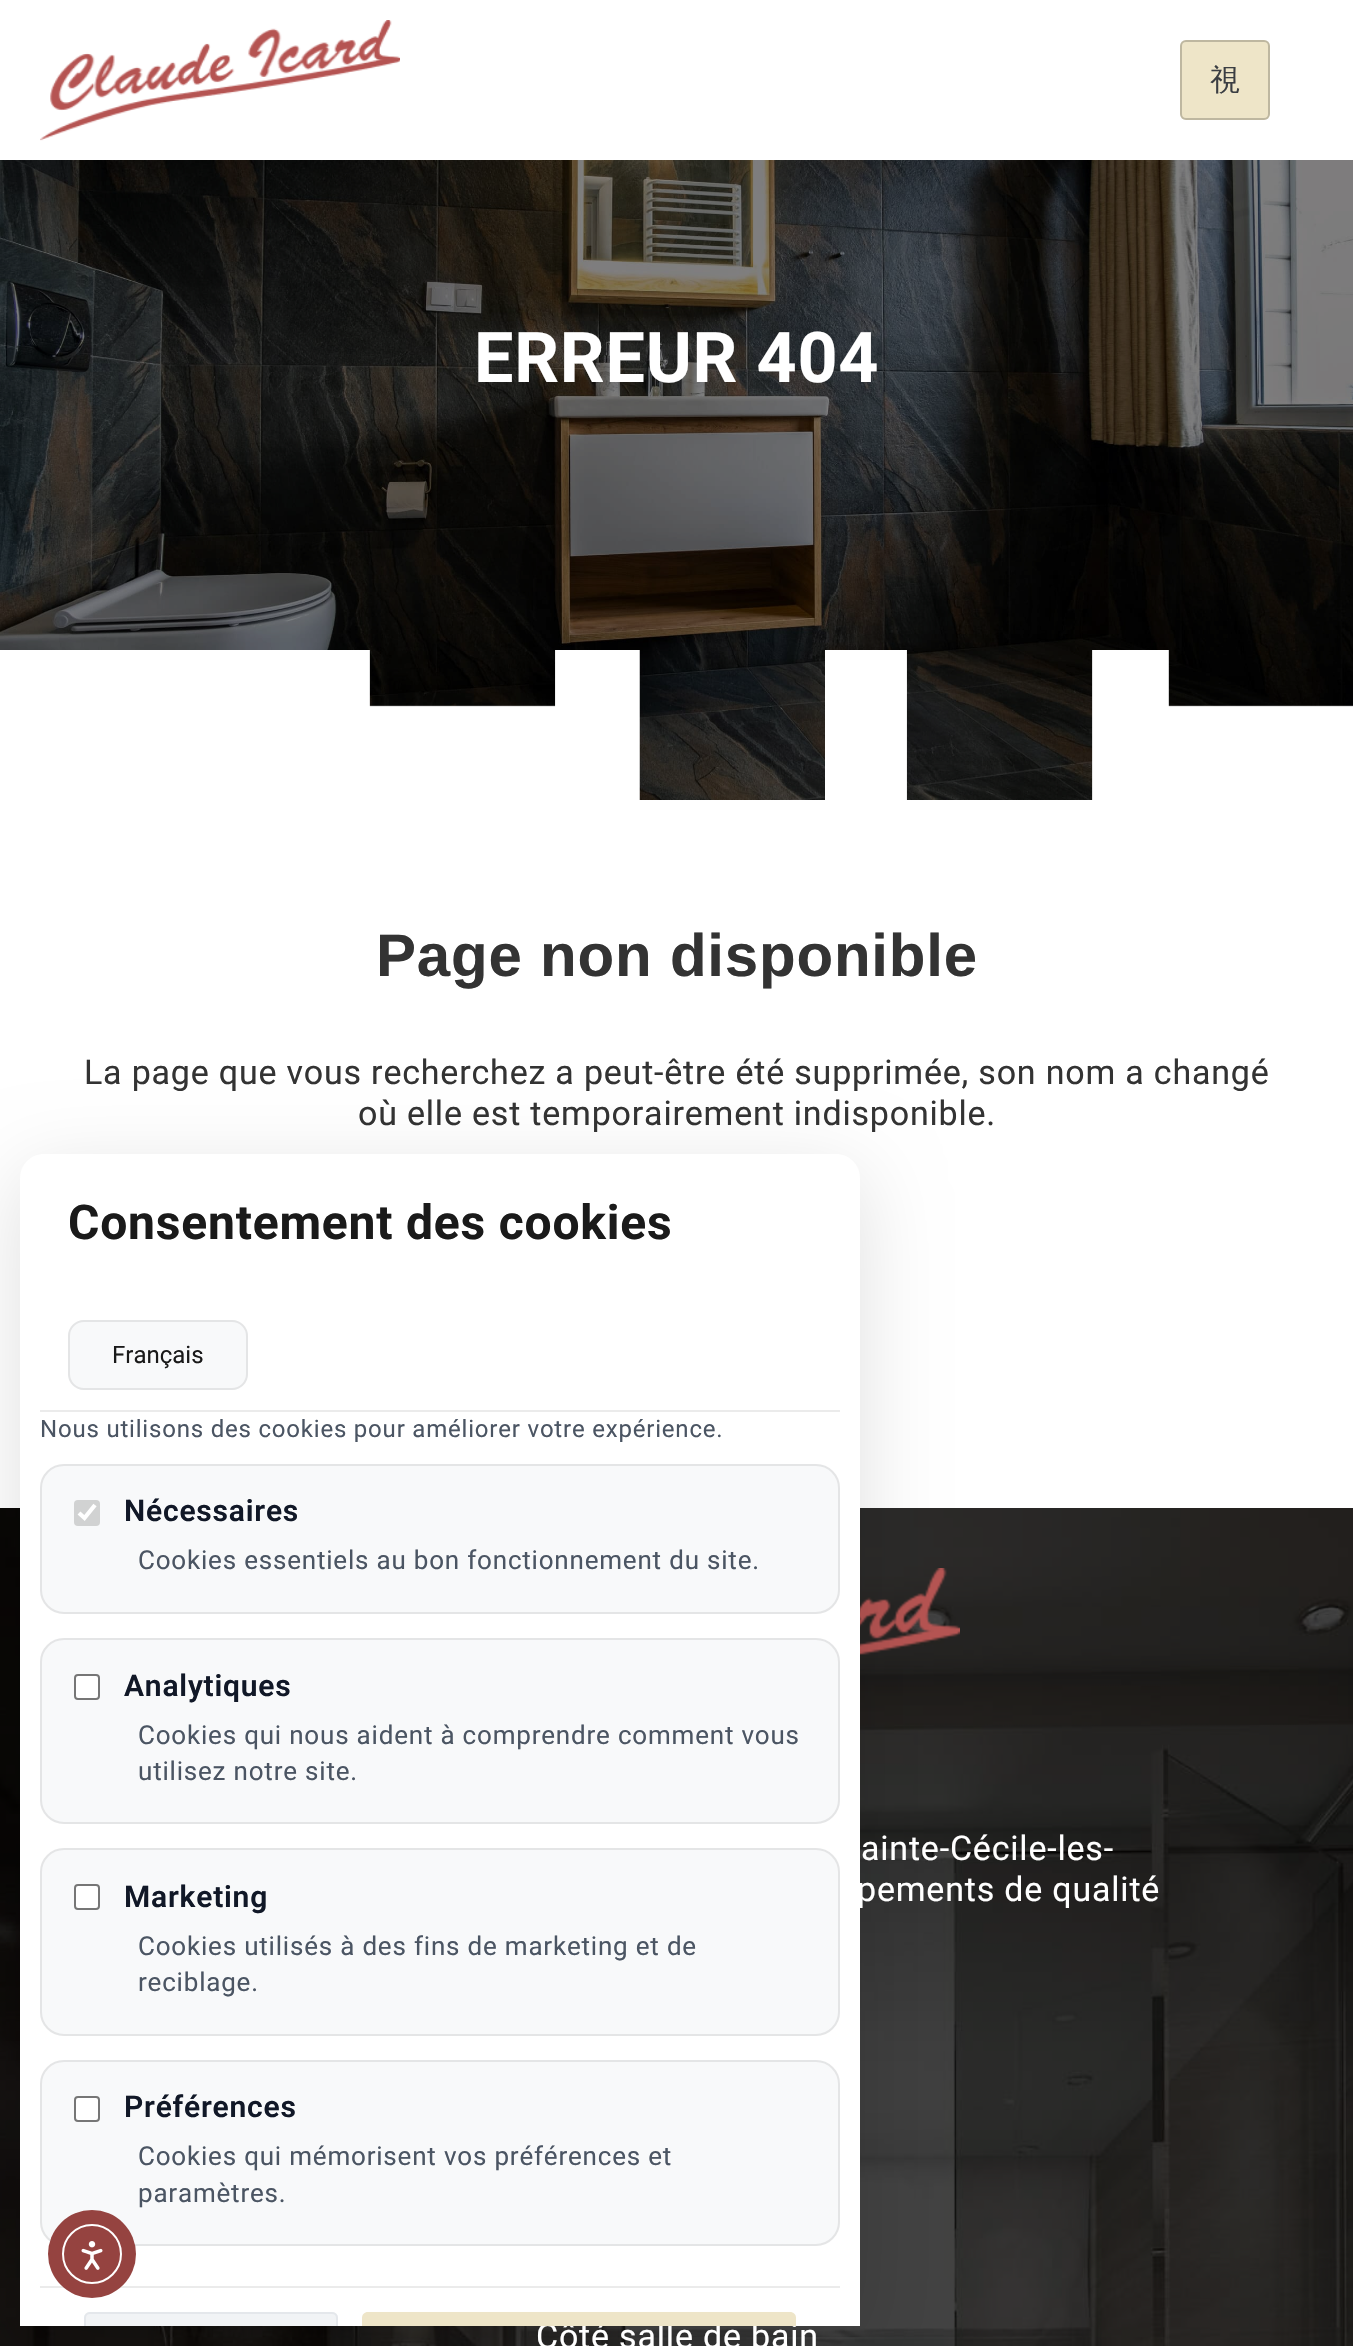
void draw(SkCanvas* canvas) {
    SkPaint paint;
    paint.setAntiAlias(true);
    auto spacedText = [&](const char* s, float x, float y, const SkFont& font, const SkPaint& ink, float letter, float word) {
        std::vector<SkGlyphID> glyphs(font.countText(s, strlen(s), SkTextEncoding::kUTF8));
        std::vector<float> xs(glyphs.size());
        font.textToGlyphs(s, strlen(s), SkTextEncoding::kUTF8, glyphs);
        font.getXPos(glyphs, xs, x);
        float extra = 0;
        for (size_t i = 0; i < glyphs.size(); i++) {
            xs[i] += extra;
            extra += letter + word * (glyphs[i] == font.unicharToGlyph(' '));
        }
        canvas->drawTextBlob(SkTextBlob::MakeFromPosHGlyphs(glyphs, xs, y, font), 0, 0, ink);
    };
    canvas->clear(0xFFFFFFFF);
    canvas->drawImageRect(SkImages::DeferredFromEncodedData(SkData::MakeFromFileName("img1.png")), SkRect::MakeXYWH(40, 20, 360, 121), SkSamplingOptions());
    paint.setColor(0xFFEEE5C8);
    canvas->drawRoundRect(SkRect::MakeXYWH(1180, 40, 90, 80), 6, 6, paint);
    paint.setStyle(SkPaint::kStroke_Style);
    paint.setStrokeWidth(2);
    paint.setColor(0x33000000);
    canvas->drawRoundRect(SkRect::MakeXYWH(1181, 41, 88, 78), 5, 5, paint);
    SkFont font1(fontMgr->matchFamilyStyle("WenQuanYi Zen Hei", SkFontStyle(500, SkFontStyle::kNormal_Width, SkFontStyle::kUpright_Slant)), 30);
    font1.setSubpixel(true);
    paint.setStyle(SkPaint::kFill_Style);
    paint.setColor(0xFF3B3E43);
    canvas->drawString("視", 1210, 90, font1, paint);
    canvas->drawImageRect(SkImages::DeferredFromEncodedData(SkData::MakeFromFileName("img2.png")), SkRect::MakeXYWH(0, 160, 1353, 640), SkSamplingOptions());
    SkFont font2(fontMgr->matchFamilyStyle("Roboto", SkFontStyle::Bold()), 70);
    font2.setSubpixel(true);
    paint.setColor(0xFFFFFFFF);
    spacedText("ERREUR 404", 474, 382, font2, paint, 0.8f, 0);
    canvas->drawImageRect(SkImages::DeferredFromEncodedData(SkData::MakeFromFileName("img3.png")), SkRect::MakeXYWH(0, 650, 1353, 150), SkSamplingOptions());
    SkFont font3(fontMgr->matchFamilyStyle("Liberation Sans", SkFontStyle::Bold()), 60);
    font3.setSubpixel(true);
    paint.setColor(0xFF333333);
    spacedText("Page non disponible", 376, 976, font3, paint, 0.8f, 0);
    SkFont font4(fontMgr->matchFamilyStyle("Roboto", SkFontStyle::Normal()), 34);
    font4.setSubpixel(true);
    spacedText("La page que vous recherchez a peut-être été supprimée, son nom a changé", 84, 1084, font4, paint, 0.8f, 0);
    spacedText("où elle est temporairement indisponible.", 358, 1125, font4, paint, 0.8f, 0);
    canvas->drawImageRect(SkImages::DeferredFromEncodedData(SkData::MakeFromFileName("img4.png")), SkRect::MakeXYWH(0, 1508, 1353, 838), SkSamplingOptions());
    canvas->drawImageRect(SkImages::DeferredFromEncodedData(SkData::MakeFromFileName("img5.png")), SkRect::MakeXYWH(860, 1568, 100, 87), SkSamplingOptions());
    paint.setColor(0x1F000000);
    paint.setMaskFilter(SkMaskFilter::MakeBlur(kNormal_SkBlurStyle, 40));
    canvas->drawRoundRect(SkRect::MakeXYWH(20, 1174, 840, 1172), 24, 24, paint);
    paint.setMaskFilter(nullptr);
    paint.setColor(0xFFFFFFFF);
    canvas->drawPath(SkPathBuilder().moveTo(44, 1154).lineTo(836, 1154).cubicTo(849.5f, 1154, 860, 1164.5f, 860, 1178).lineTo(860, 2326).lineTo(20, 2326).lineTo(20, 1178).cubicTo(20, 1164.5f, 30.5f, 1154, 44, 1154).close().detach(), paint);
    paint.setColor(0xFFEBEBEB);
    canvas->drawRect(SkRect::MakeXYWH(40, 1410, 800, 2), paint);
    SkFont font5(fontMgr->matchFamilyStyle("Roboto", SkFontStyle::Bold()), 48);
    font5.setSubpixel(true);
    paint.setColor(0xFF1A1A1A);
    spacedText("Consentement des cookies", 68, 1239, font5, paint, 0.8f, 0);
    paint.setColor(0xFFF8F9FA);
    canvas->drawRoundRect(SkRect::MakeXYWH(68, 1320, 180, 70), 16, 16, paint);
    paint.setStyle(SkPaint::kStroke_Style);
    paint.setColor(0x14000000);
    canvas->drawRoundRect(SkRect::MakeXYWH(69, 1321, 178, 68), 15, 15, paint);
    SkFont font6(fontMgr->matchFamilyStyle("Roboto", SkFontStyle::Normal()), 24);
    font6.setSubpixel(true);
    paint.setStyle(SkPaint::kFill_Style);
    paint.setColor(0xFF1A1A1A);
    canvas->drawString("Français", 112, 1363, font6, paint);
    paint.setColor(0xFF4B5563);
    spacedText("Nous utilisons des cookies pour améliorer votre expérience.", 40, 1437, font6, paint, 0.8f, 0);
    paint.setColor(0xFFF8F9FA);
    canvas->drawRoundRect(SkRect::MakeXYWH(40, 1464, 800, 150), 24, 24, paint);
    paint.setStyle(SkPaint::kStroke_Style);
    paint.setColor(0x14000000);
    canvas->drawRoundRect(SkRect::MakeXYWH(41, 1465, 798, 148), 23, 23, paint);
    paint.setStyle(SkPaint::kFill_Style);
    paint.setColor(0xFFD1D2D2);
    canvas->drawRoundRect(SkRect::MakeXYWH(74, 1500, 26, 26), 4, 4, paint);
    paint.setStyle(SkPaint::kStroke_Style);
    paint.setStrokeWidth(4.2f);
    paint.setColor(0xFFFFFFFF);
    canvas->drawPath(SkPathBuilder().moveTo(79, 1513).lineTo(84.5f, 1518).lineTo(95, 1505).detach(), paint);
    SkFont font7(fontMgr->matchFamilyStyle("Roboto", SkFontStyle(600, SkFontStyle::kNormal_Width, SkFontStyle::kUpright_Slant)), 30);
    font7.setSubpixel(true);
    paint.setStyle(SkPaint::kFill_Style);
    paint.setColor(0xFF111827);
    spacedText("Nécessaires", 124, 1521, font7, paint, 0.8f, 0);
    SkFont font8(fontMgr->matchFamilyStyle("Roboto", SkFontStyle::Normal()), 26);
    font8.setSubpixel(true);
    paint.setColor(0xFF4B5563);
    spacedText("Cookies essentiels au bon fonctionnement du site.", 138, 1569, font8, paint, 0.8f, 0);
    paint.setColor(0xFFF8F9FA);
    canvas->drawRoundRect(SkRect::MakeXYWH(40, 1638, 800, 186), 24, 24, paint);
    paint.setStyle(SkPaint::kStroke_Style);
    paint.setStrokeWidth(2);
    paint.setColor(0x14000000);
    canvas->drawRoundRect(SkRect::MakeXYWH(41, 1639, 798, 184), 23, 23, paint);
    paint.setStyle(SkPaint::kFill_Style);
    paint.setColor(0xFFFFFFFF);
    canvas->drawRoundRect(SkRect::MakeXYWH(75, 1675, 24, 24), 3, 3, paint);
    paint.setStyle(SkPaint::kStroke_Style);
    paint.setColor(0xFF767676);
    canvas->drawRoundRect(SkRect::MakeXYWH(75, 1675, 24, 24), 3, 3, paint);
    paint.setStyle(SkPaint::kFill_Style);
    paint.setColor(0xFF111827);
    spacedText("Analytiques", 124, 1696, font7, paint, 0.8f, 0);
    paint.setColor(0xFF4B5563);
    spacedText("Cookies qui nous aident à comprendre comment vous", 138, 1744, font8, paint, 0.8f, 0);
    spacedText("utilisez notre site.", 138, 1780, font8, paint, 0.8f, 0);
    paint.setColor(0xFFF8F9FA);
    canvas->drawRoundRect(SkRect::MakeXYWH(40, 1848, 800, 188), 24, 24, paint);
    paint.setStyle(SkPaint::kStroke_Style);
    paint.setColor(0x14000000);
    canvas->drawRoundRect(SkRect::MakeXYWH(41, 1849, 798, 186), 23, 23, paint);
    paint.setStyle(SkPaint::kFill_Style);
    paint.setColor(0xFFFFFFFF);
    canvas->drawRoundRect(SkRect::MakeXYWH(75, 1885, 24, 24), 3, 3, paint);
    paint.setStyle(SkPaint::kStroke_Style);
    paint.setColor(0xFF767676);
    canvas->drawRoundRect(SkRect::MakeXYWH(75, 1885, 24, 24), 3, 3, paint);
    paint.setStyle(SkPaint::kFill_Style);
    paint.setColor(0xFF111827);
    spacedText("Marketing", 124, 1907, font7, paint, 0.8f, 0);
    paint.setColor(0xFF4B5563);
    spacedText("Cookies utilisés à des fins de marketing et de", 138, 1955, font8, paint, 0.8f, 0);
    spacedText("reciblage.", 138, 1991, font8, paint, 0.8f, 0);
    paint.setColor(0xFFF8F9FA);
    canvas->drawRoundRect(SkRect::MakeXYWH(40, 2060, 800, 186), 24, 24, paint);
    paint.setStyle(SkPaint::kStroke_Style);
    paint.setColor(0x14000000);
    canvas->drawRoundRect(SkRect::MakeXYWH(41, 2061, 798, 184), 23, 23, paint);
    paint.setStyle(SkPaint::kFill_Style);
    paint.setColor(0xFFFFFFFF);
    canvas->drawRoundRect(SkRect::MakeXYWH(75, 2097, 24, 24), 3, 3, paint);
    paint.setStyle(SkPaint::kStroke_Style);
    paint.setColor(0xFF767676);
    canvas->drawRoundRect(SkRect::MakeXYWH(75, 2097, 24, 24), 3, 3, paint);
    paint.setStyle(SkPaint::kFill_Style);
    paint.setColor(0xFF111827);
    spacedText("Préférences", 124, 2117, font7, paint, 0.8f, 0);
    paint.setColor(0xFF4B5563);
    spacedText("Cookies qui mémorisent vos préférences et", 138, 2165, font8, paint, 0.8f, 0);
    spacedText("paramètres.", 138, 2202, font8, paint, 0.8f, 0);
    paint.setColor(0xFFEBEBEB);
    canvas->drawRect(SkRect::MakeXYWH(40, 2286, 800, 2), paint);
    paint.setColor(0xFFF1F3F5);
    canvas->drawPath(SkPathBuilder().moveTo(90, 2312).lineTo(332, 2312).cubicTo(335.5f, 2312, 338, 2314.5f, 338, 2318).lineTo(338, 2326).lineTo(84, 2326).lineTo(84, 2318).cubicTo(84, 2314.5f, 86.5f, 2312, 90, 2312).close().detach(), paint);
    canvas->save();
    canvas->clipRect(SkRect::MakeXYWH(20, 1154, 840, 1172));
    paint.setStyle(SkPaint::kStroke_Style);
    paint.setColor(0xFFE4E7EB);
    canvas->drawRoundRect(SkRect::MakeXYWH(85, 2313, 252, 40), 5, 5, paint);
    canvas->restore();
    paint.setStyle(SkPaint::kFill_Style);
    paint.setColor(0xFFFFFFFF);
    spacedText("Côté salle de bain", 536, 2348, font4, paint, 0.8f, 0);
    paint.setColor(0xFFEEE5C8);
    canvas->drawPath(SkPathBuilder().moveTo(368, 2312).lineTo(790, 2312).cubicTo(793.5f, 2312, 796, 2314.5f, 796, 2318).lineTo(796, 2326).lineTo(362, 2326).lineTo(362, 2318).cubicTo(362, 2314.5f, 364.5f, 2312, 368, 2312).close().detach(), paint);
    paint.setColor(0xFFFFFFFF);
    spacedText("ainte-Cécile-les-", 861, 1860, font4, paint, 0.8f, 0);
    spacedText("pements de qualité", 857, 1901, font4, paint, 0.8f, 0);
    paint.setColor(0xFF954340);
    canvas->drawCircle(92, 2254, 44, paint);
    paint.setStyle(SkPaint::kStroke_Style);
    paint.setColor(0xFFFFFFFF);
    canvas->drawCircle(92, 2254, 29, paint);
    canvas->drawImageRect(SkImages::DeferredFromEncodedData(SkData::MakeFromFileName("img6.png")), SkRect::MakeXYWH(81, 2241, 22, 29), SkSamplingOptions());
}
